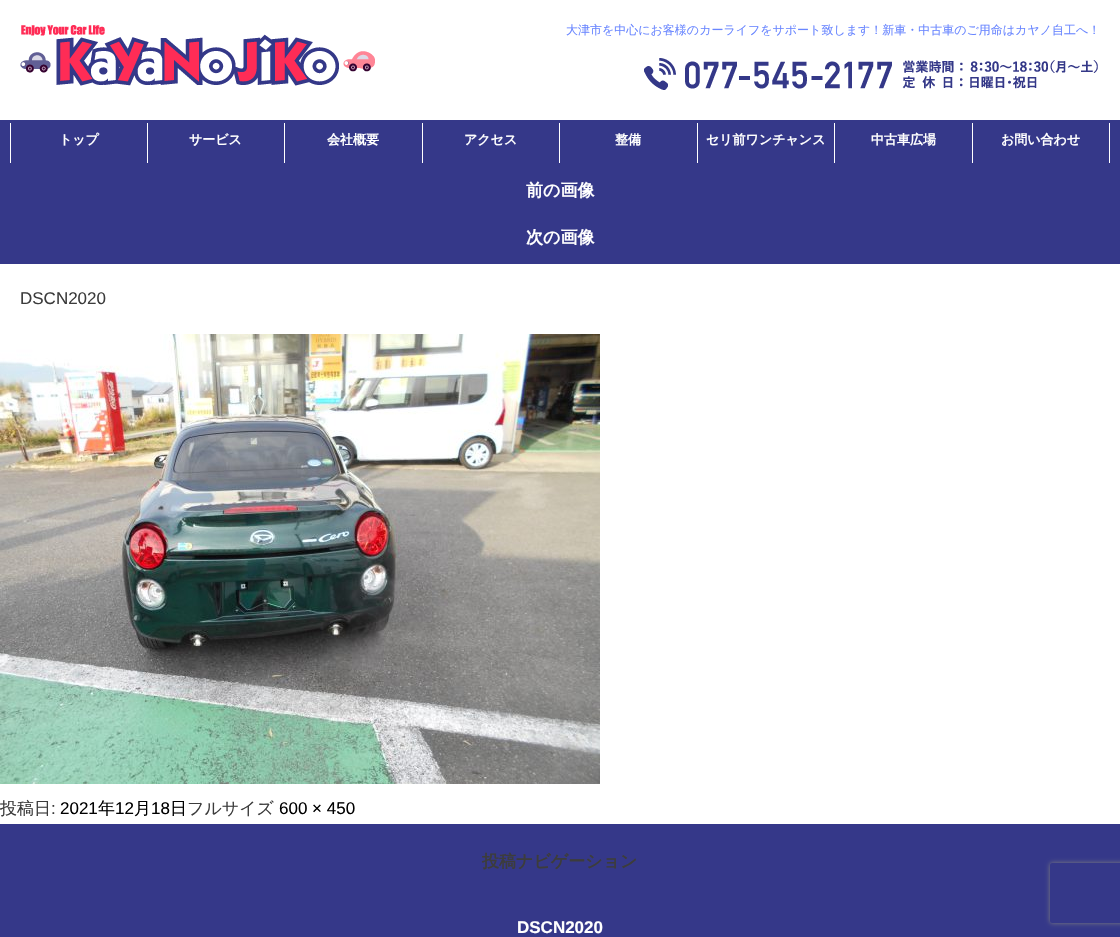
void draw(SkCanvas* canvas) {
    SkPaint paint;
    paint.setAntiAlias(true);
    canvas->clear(0xFFFFFFFF);
    canvas->drawImageRect(SkImages::DeferredFromEncodedData(SkData::MakeFromFileName("img1.png")), SkRect::MakeXYWH(20, 25, 355, 61), SkSamplingOptions());
    SkFont font1(fontMgr->matchFamilyStyle("WenQuanYi Zen Hei", SkFontStyle(500, SkFontStyle::kNormal_Width, SkFontStyle::kUpright_Slant)), 12);
    font1.setSubpixel(true);
    paint.setColor(0xFF6986FF);
    canvas->drawString("大津市を中心にお客様のカーライフをサポート致します！新車・中古車のご用命はカヤノ自工へ！", 566, 34, font1, paint);
    canvas->drawImageRect(SkImages::DeferredFromEncodedData(SkData::MakeFromFileName("img2.png")), SkRect::MakeXYWH(644, 58, 454, 32), SkSamplingOptions());
    paint.setColor(0xFF353889);
    canvas->drawRect(SkRect::MakeXYWH(0, 120, 1120, 144), paint);
    paint.setColor(0xFFFFFFFF);
    canvas->drawRect(SkRect::MakeXYWH(147, 123, 1, 40), paint);
    canvas->drawRect(SkRect::MakeXYWH(10, 123, 1, 40), paint);
    SkFont font2(fontMgr->matchFamilyStyle("WenQuanYi Zen Hei", SkFontStyle::Bold()), 13);
    font2.setSubpixel(true);
    canvas->drawString("トップ", 59, 144, font2, paint);
    canvas->drawRect(SkRect::MakeXYWH(284, 123, 1, 40), paint);
    canvas->drawString("サービス", 189, 144, font2, paint);
    canvas->drawRect(SkRect::MakeXYWH(422, 123, 1, 40), paint);
    canvas->drawString("会社概要", 327, 144, font2, paint);
    canvas->drawRect(SkRect::MakeXYWH(559, 123, 1, 40), paint);
    canvas->drawString("アクセス", 464, 144, font2, paint);
    canvas->drawRect(SkRect::MakeXYWH(697, 123, 1, 40), paint);
    canvas->drawString("整備", 615, 144, font2, paint);
    canvas->drawRect(SkRect::MakeXYWH(834, 123, 1, 40), paint);
    canvas->drawString("セリ前ワンチャンス", 706, 144, font2, paint);
    canvas->drawRect(SkRect::MakeXYWH(972, 123, 1, 40), paint);
    canvas->drawString("中古車広場", 871, 144, font2, paint);
    canvas->drawRect(SkRect::MakeXYWH(1109, 123, 1, 40), paint);
    canvas->drawString("お問い合わせ", 1001, 144, font2, paint);
    SkFont font3(fontMgr->matchFamilyStyle("WenQuanYi Zen Hei", SkFontStyle::Bold()), 17);
    font3.setSubpixel(true);
    canvas->drawString("前の画像", 526, 196, font3, paint);
    canvas->drawString("次の画像", 526, 243, font3, paint);
    SkFont font4(fontMgr->matchFamilyStyle("Liberation Sans", SkFontStyle::Normal()), 17);
    font4.setSubpixel(true);
    paint.setColor(0xFF3C3C3C);
    canvas->drawString("DSCN2020", 20, 304, font4, paint);
    canvas->drawImageRect(SkImages::DeferredFromEncodedData(SkData::MakeFromFileName("img3.png")), SkRect::MakeXYWH(0, 334, 600, 450), SkSamplingOptions());
    SkFont font5(fontMgr->matchFamilyStyle("WenQuanYi Zen Hei", SkFontStyle(500, SkFontStyle::kNormal_Width, SkFontStyle::kUpright_Slant)), 17);
    font5.setSubpixel(true);
    canvas->drawString("投稿日", 0, 814, font5, paint);
    canvas->drawString(":", 51, 814, font4, paint);
    paint.setColor(0xFF000000);
    canvas->drawString("2021", 60, 814, font4, paint);
    canvas->drawString("年", 98, 814, font5, paint);
    canvas->drawString("12", 115, 814, font4, paint);
    canvas->drawString("月", 134, 814, font5, paint);
    canvas->drawString("18", 151, 814, font4, paint);
    canvas->drawString("日", 170, 814, font5, paint);
    paint.setColor(0xFF3C3C3C);
    canvas->drawString("フルサイズ", 187, 814, font5, paint);
    paint.setColor(0xFF000000);
    canvas->drawString("600 × 450", 279, 814, font4, paint);
    paint.setColor(0xFF353889);
    canvas->drawRect(SkRect::MakeXYWH(0, 824, 1120, 113), paint);
    paint.setColor(0xFF3C3C3C);
    canvas->drawString("投稿ナビゲーション", 482, 867, font3, paint);
    SkFont font6(fontMgr->matchFamilyStyle("Liberation Sans", SkFontStyle::Bold()), 17);
    font6.setSubpixel(true);
    paint.setColor(0xFFFFFFFF);
    canvas->drawString("DSCN2020", 517, 933, font6, paint);
    canvas->save();
    canvas->clipPath(SkPathBuilder(SkPathFillType::kEvenOdd).moveTo(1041, 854).lineTo(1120, 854).lineTo(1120, 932).lineTo(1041, 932).close().moveTo(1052, 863).lineTo(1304, 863).cubicTo(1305, 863, 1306, 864, 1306, 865).lineTo(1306, 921).cubicTo(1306, 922, 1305, 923, 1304, 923).lineTo(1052, 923).cubicTo(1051, 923, 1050, 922, 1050, 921).lineTo(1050, 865).cubicTo(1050, 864, 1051, 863, 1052, 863).close().detach(), true);
    paint.setColor(0xFF808080);
    paint.setMaskFilter(SkMaskFilter::MakeBlur(kNormal_SkBlurStyle, 2.5f));
    canvas->drawRoundRect(SkRect::MakeXYWH(1050, 863, 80, 60), 2, 2, paint);
    paint.setMaskFilter(nullptr);
    canvas->restore();
}
